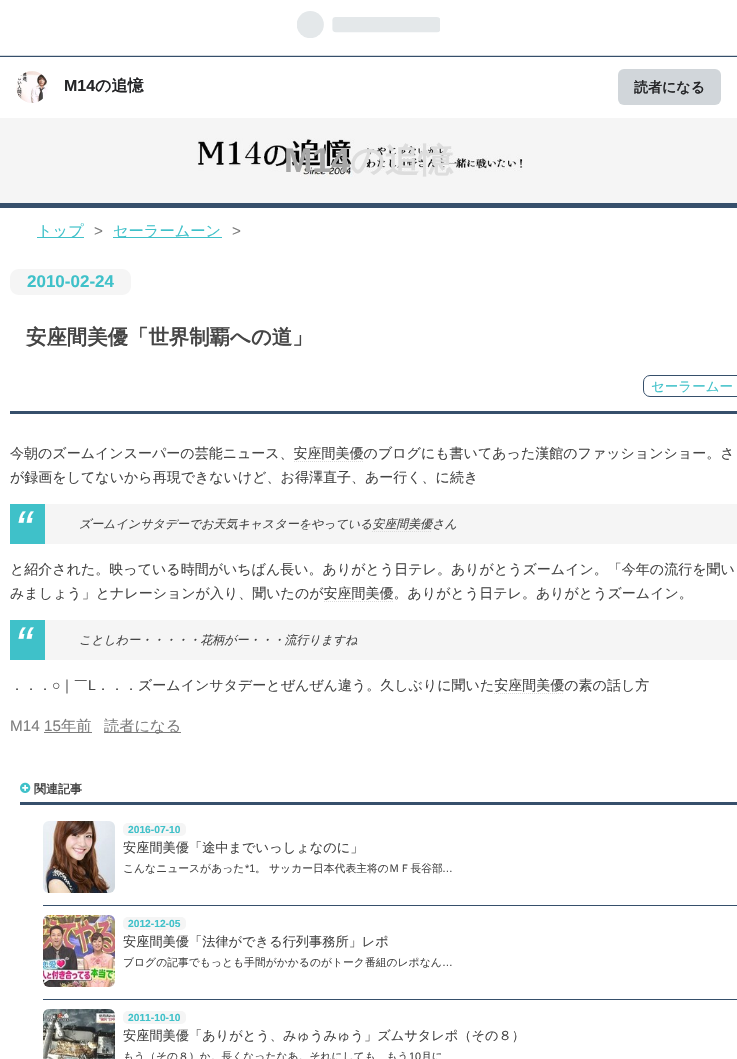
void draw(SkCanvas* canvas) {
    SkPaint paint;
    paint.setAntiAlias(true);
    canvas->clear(0xFFF5F5F5);
    paint.setColor(0xFFFFFFFF);
    canvas->drawRect(SkRect::MakeXYWH(0, 0, 737, 55), paint);
    paint.setColor(0xFFD2D8DD);
    canvas->drawRect(SkRect::MakeXYWH(0, 55, 737, 1), paint);
    paint.setColor(0xFF364F6B);
    canvas->drawRect(SkRect::MakeXYWH(0, 56, 737, 1), paint);
    canvas->drawImageRect(SkImages::DeferredFromEncodedData(SkData::MakeFromFileName("img1.png")), SkRect::MakeXYWH(297, 11, 143, 27), SkSamplingOptions());
    paint.setColor(0xFFFFFFFF);
    canvas->drawRect(SkRect::MakeXYWH(0, 57, 737, 61), paint);
    canvas->drawImageRect(SkImages::DeferredFromEncodedData(SkData::MakeFromFileName("img2.png")), SkRect::MakeXYWH(16, 71, 32, 32), SkSamplingOptions());
    SkFont font1(fontMgr->matchFamilyStyle("Liberation Sans", SkFontStyle::Bold()), 16);
    font1.setSubpixel(true);
    paint.setColor(0xFF242527);
    canvas->drawString("M14", 64, 91, font1, paint);
    SkFont font2(fontMgr->matchFamilyStyle("WenQuanYi Zen Hei", SkFontStyle::Bold()), 16);
    font2.setSubpixel(true);
    canvas->drawString("の追憶", 95, 91, font2, paint);
    paint.setColor(0xFFD1D6DA);
    canvas->drawRoundRect(SkRect::MakeXYWH(618, 69, 103, 36), 6, 6, paint);
    SkFont font3(fontMgr->matchFamilyStyle("WenQuanYi Zen Hei", SkFontStyle::Bold()), 14);
    font3.setSubpixel(true);
    paint.setColor(0xFF242527);
    canvas->drawString("読者になる", 634, 92, font3, paint);
    paint.setColor(0xFF364F6B);
    canvas->drawRect(SkRect::MakeXYWH(0, 203, 737, 5), paint);
    canvas->drawImageRect(SkImages::DeferredFromEncodedData(SkData::MakeFromFileName("img3.png")), SkRect::MakeXYWH(197, 138, 326, 39), SkSamplingOptions());
    SkFont font4(fontMgr->matchFamilyStyle("Liberation Sans", SkFontStyle::Bold()), 34);
    font4.setSubpixel(true);
    paint.setColor(0xFFA6A6A6);
    canvas->drawString("M14", 284, 172, font4, paint);
    SkFont font5(fontMgr->matchFamilyStyle("WenQuanYi Zen Hei", SkFontStyle::Bold()), 34);
    font5.setSubpixel(true);
    paint.setColor(0xFFDDDDDD);
    canvas->drawString("の追憶", 350, 172, font5, paint);
    paint.setColor(0xFFFFFFFF);
    canvas->drawRect(SkRect::MakeXYWH(0, 208, 737, 851), paint);
    paint.setColor(0xFF3FC1C9);
    canvas->drawRect(SkRect::MakeXYWH(37, 237, 47, 1), paint);
    SkFont font6(fontMgr->matchFamilyStyle("WenQuanYi Zen Hei", SkFontStyle(500, SkFontStyle::kNormal_Width, SkFontStyle::kUpright_Slant)), 15.25f);
    font6.setSubpixel(true);
    canvas->drawString("トップ", 37, 236, font6, paint);
    SkFont font7(fontMgr->matchFamilyStyle("Liberation Sans", SkFontStyle::Normal()), 15.25f);
    font7.setSubpixel(true);
    paint.setColor(0xFF7D7D7D);
    canvas->drawString(">", 94, 236, font7, paint);
    paint.setColor(0xFF3FC1C9);
    canvas->drawRect(SkRect::MakeXYWH(113, 237, 109, 1), paint);
    canvas->drawString("セーラームーン", 113, 236, font6, paint);
    paint.setColor(0xFF7D7D7D);
    canvas->drawString(">", 232, 236, font7, paint);
    paint.setColor(0xFF364F6B);
    canvas->drawRect(SkRect::MakeXYWH(10, 411, 727, 3), paint);
    paint.setColor(0xFFF5F5F5);
    canvas->drawPath(SkPathBuilder().moveTo(19, 269).lineTo(65, 269).lineTo(65, 295).lineTo(19, 295).cubicTo(14, 295, 10, 291, 10, 286).lineTo(10, 278).cubicTo(10, 273, 14, 269, 19, 269).close().detach(), paint);
    canvas->drawRect(SkRect::MakeXYWH(65, 269, 30, 26), paint);
    canvas->drawPath(SkPathBuilder().moveTo(95, 269).lineTo(122, 269).cubicTo(127, 269, 131, 273, 131, 278).lineTo(131, 286).cubicTo(131, 291, 127, 295, 122, 295).lineTo(95, 295).close().detach(), paint);
    SkFont font8(fontMgr->matchFamilyStyle("Liberation Sans", SkFontStyle::Bold()), 17);
    font8.setSubpixel(true);
    paint.setColor(0xFF3FC1C9);
    canvas->drawString("2010-02-24", 27, 287, font8, paint);
    SkFont font9(fontMgr->matchFamilyStyle("WenQuanYi Zen Hei", SkFontStyle::Bold()), 20.4f);
    font9.setSubpixel(true);
    paint.setColor(0xFF454545);
    canvas->drawString("安座間美優「世界制覇への道」", 26, 344, font9, paint);
    paint.setStyle(SkPaint::kStroke_Style);
    paint.setStrokeWidth(1);
    paint.setColor(0xFF364F6B);
    canvas->drawRoundRect(SkRect::MakeXYWH(643.5f, 375.5f, 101, 21), 6.5f, 6.5f, paint);
    SkFont font10(fontMgr->matchFamilyStyle("WenQuanYi Zen Hei", SkFontStyle(500, SkFontStyle::kNormal_Width, SkFontStyle::kUpright_Slant)), 13.5f);
    font10.setSubpixel(true);
    paint.setStyle(SkPaint::kFill_Style);
    paint.setColor(0xFF3FC1C9);
    canvas->drawString("セーラームー", 651, 391, font10, paint);
    SkFont font11(fontMgr->matchFamilyStyle("WenQuanYi Zen Hei", SkFontStyle(500, SkFontStyle::kNormal_Width, SkFontStyle::kUpright_Slant)), 14);
    font11.setSubpixel(true);
    paint.setColor(0xFF454545);
    canvas->drawString("今朝のズームインスーパーの芸能ニュース、安座間美優のブログにも書いてあった漢館のファッションショー。さ", 10, 458, font11, paint);
    paint.setStyle(SkPaint::kStroke_Style);
    paint.setColor(0xFFDDDDDD);
    paint.setPathEffect(SkDashPathEffect::Make({{1, 1}}, 0));
    canvas->drawPath(SkPathBuilder().moveTo(294, 461.5f).lineTo(364, 461.5f).detach(), paint);
    paint.setPathEffect(nullptr);
    paint.setStyle(SkPaint::kFill_Style);
    paint.setColor(0xFF454545);
    canvas->drawString("が録画をしてないから再現できないけど、お得澤直子、あー行く、に続き", 10, 482, font11, paint);
    paint.setColor(0xFFF5F5F5);
    canvas->drawRect(SkRect::MakeXYWH(45, 504, 692, 40), paint);
    paint.setColor(0xFF3FC1C9);
    canvas->drawRect(SkRect::MakeXYWH(10, 504, 35, 40), paint);
    SkFont font12(fontMgr->matchFamilyStyle("Liberation Sans", SkFontStyle::Italic()), 50);
    font12.setSubpixel(true);
    paint.setColor(0xFFFFFFFF);
    canvas->drawString("“", 15, 546, font12, paint);
    SkFont font13(fontMgr->matchFamilyStyle("WenQuanYi Zen Hei", SkFontStyle(500, SkFontStyle::kNormal_Width, SkFontStyle::kItalic_Slant)), 12);
    font13.setSubpixel(true);
    paint.setColor(0xFF454545);
    canvas->drawString("ズームインサタデーでお天気キャスターをやっている安座間美優さん", 79, 528, font13, paint);
    paint.setStyle(SkPaint::kStroke_Style);
    paint.setColor(0xFFDDDDDD);
    paint.setPathEffect(SkDashPathEffect::Make({{1, 1}}, 0));
    canvas->drawPath(SkPathBuilder().moveTo(372, 531.5f).lineTo(432, 531.5f).detach(), paint);
    paint.setPathEffect(nullptr);
    paint.setStyle(SkPaint::kFill_Style);
    paint.setColor(0xFF454545);
    canvas->drawString("と紹介された。映っている時間がいちばん長い。ありがとう日テレ。ありがとうズームイン。「今年の流行を聞い", 10, 574, font11, paint);
    canvas->drawString("みましょう」とナレーションが入り、聞いたのが安座間美優。ありがとう日テレ。ありがとうズームイン。", 10, 598, font11, paint);
    paint.setStyle(SkPaint::kStroke_Style);
    paint.setColor(0xFFDDDDDD);
    paint.setPathEffect(SkDashPathEffect::Make({{1, 1}}, 0));
    canvas->drawPath(SkPathBuilder().moveTo(324, 601.5f).lineTo(394, 601.5f).detach(), paint);
    paint.setPathEffect(nullptr);
    paint.setStyle(SkPaint::kFill_Style);
    paint.setColor(0xFFF5F5F5);
    canvas->drawRect(SkRect::MakeXYWH(45, 620, 692, 40), paint);
    paint.setColor(0xFF3FC1C9);
    canvas->drawRect(SkRect::MakeXYWH(10, 620, 35, 40), paint);
    paint.setColor(0xFFFFFFFF);
    canvas->drawString("“", 15, 662, font12, paint);
    paint.setColor(0xFF454545);
    canvas->drawString("ことしわー・・・・・花柄がー・・・流行りますね", 79, 644, font13, paint);
    canvas->drawString("．．．", 10, 690, font11, paint);
    SkFont font14(fontMgr->matchFamilyStyle("Liberation Sans", SkFontStyle::Normal()), 14);
    font14.setSubpixel(true);
    canvas->drawString("○", 52, 690, font14, paint);
    canvas->drawString("｜￣", 60, 690, font11, paint);
    canvas->drawString("L", 88, 690, font14, paint);
    canvas->drawString("．．．ズームインサタデーとぜんぜん違う。久しぶりに聞いた安座間美優の素の話し方", 96, 690, font11, paint);
    paint.setStyle(SkPaint::kStroke_Style);
    paint.setColor(0xFFDDDDDD);
    paint.setPathEffect(SkDashPathEffect::Make({{1, 1}}, 0));
    canvas->drawPath(SkPathBuilder().moveTo(494, 693.5f).lineTo(564, 693.5f).detach(), paint);
    paint.setPathEffect(nullptr);
    paint.setStyle(SkPaint::kFill_Style);
    paint.setColor(0xFF7D7D7D);
    canvas->drawString("M14 15", 10, 731, font7, paint);
    paint.setColor(0xFF7C7C7C);
    canvas->drawRect(SkRect::MakeXYWH(44, 732, 48, 1), paint);
    paint.setColor(0xFF7D7D7D);
    canvas->drawString("年前", 61, 731, font6, paint);
    paint.setColor(0xFF7C7C7C);
    canvas->drawRect(SkRect::MakeXYWH(104, 732, 77, 1), paint);
    paint.setColor(0xFF7D7D7D);
    canvas->drawString("読者になる", 104, 731, font6, paint);
    paint.setColor(0xFF364F6B);
    canvas->drawRect(SkRect::MakeXYWH(20, 802, 717, 3), paint);
    canvas->drawImageRect(SkImages::DeferredFromEncodedData(SkData::MakeFromFileName("img4.png")), SkRect::MakeXYWH(20, 782, 11, 11), SkSamplingOptions());
    SkFont font15(fontMgr->matchFamilyStyle("WenQuanYi Zen Hei", SkFontStyle::Bold()), 12);
    font15.setSubpixel(true);
    paint.setColor(0xFF454545);
    canvas->drawString("関連記事", 34, 793, font15, paint);
    paint.setColor(0xFF364F6B);
    canvas->drawRect(SkRect::MakeXYWH(43, 905, 694, 1), paint);
    canvas->drawImageRect(SkImages::DeferredFromEncodedData(SkData::MakeFromFileName("img5.png")), SkRect::MakeXYWH(43, 821, 72, 72), SkSamplingOptions());
    paint.setColor(0xFFF5F5F5);
    canvas->drawRoundRect(SkRect::MakeXYWH(123, 823, 63, 13), 5, 5, paint);
    SkFont font16(fontMgr->matchFamilyStyle("Liberation Sans", SkFontStyle::Bold()), 10.25f);
    font16.setSubpixel(true);
    paint.setColor(0xFF3FC1C9);
    canvas->drawString("2016-07-10", 128, 833, font16, paint);
    SkFont font17(fontMgr->matchFamilyStyle("WenQuanYi Zen Hei", SkFontStyle(500, SkFontStyle::kNormal_Width, SkFontStyle::kUpright_Slant)), 13.2f);
    font17.setSubpixel(true);
    paint.setColor(0xFF454545);
    canvas->drawString("安座間美優「途中までいっしょなのに」", 123, 852, font17, paint);
    SkFont font18(fontMgr->matchFamilyStyle("WenQuanYi Zen Hei", SkFontStyle(500, SkFontStyle::kNormal_Width, SkFontStyle::kUpright_Slant)), 10.8f);
    font18.setSubpixel(true);
    canvas->drawString("こんなニュースがあった", 123, 872, font18, paint);
    SkFont font19(fontMgr->matchFamilyStyle("Liberation Sans", SkFontStyle::Normal()), 10.8f);
    font19.setSubpixel(true);
    canvas->drawString("*1", 245, 872, font19, paint);
    canvas->drawString("。 サッカー日本代表主将のＭＦ長谷部", 255, 872, font18, paint);
    canvas->drawString("…", 442, 872, font19, paint);
    paint.setColor(0xFF364F6B);
    canvas->drawRect(SkRect::MakeXYWH(43, 999, 694, 1), paint);
    canvas->drawImageRect(SkImages::DeferredFromEncodedData(SkData::MakeFromFileName("img6.png")), SkRect::MakeXYWH(43, 915, 72, 72), SkSamplingOptions());
    paint.setColor(0xFFF5F5F5);
    canvas->drawRoundRect(SkRect::MakeXYWH(123, 917, 63, 13), 5, 5, paint);
    paint.setColor(0xFF3FC1C9);
    canvas->drawString("2012-12-05", 128, 927, font16, paint);
    paint.setColor(0xFF454545);
    canvas->drawString("安座間美優「法律ができる行列事務所」レポ", 123, 946, font17, paint);
    canvas->drawString("ブログの記事でもっとも手間がかかるのがトーク番組のレポなん", 123, 966, font18, paint);
    canvas->drawString("…", 442, 966, font19, paint);
    canvas->drawImageRect(SkImages::DeferredFromEncodedData(SkData::MakeFromFileName("img7.png")), SkRect::MakeXYWH(43, 1009, 72, 50), SkSamplingOptions());
    paint.setColor(0xFFF5F5F5);
    canvas->drawRoundRect(SkRect::MakeXYWH(123, 1011, 63, 13), 5, 5, paint);
    paint.setColor(0xFF3FC1C9);
    canvas->drawString("2011-10-10", 128, 1021, font16, paint);
    paint.setColor(0xFF454545);
    canvas->drawString("安座間美優「ありがとう、みゅうみゅう」ズムサタレポ（その８）", 123, 1040, font17, paint);
    canvas->drawString("もう（その８）か。長くなったなあ。それにしても、もう", 123, 1060, font18, paint);
    canvas->drawString("10", 409, 1060, font19, paint);
    canvas->drawString("月に", 421, 1060, font18, paint);
}
